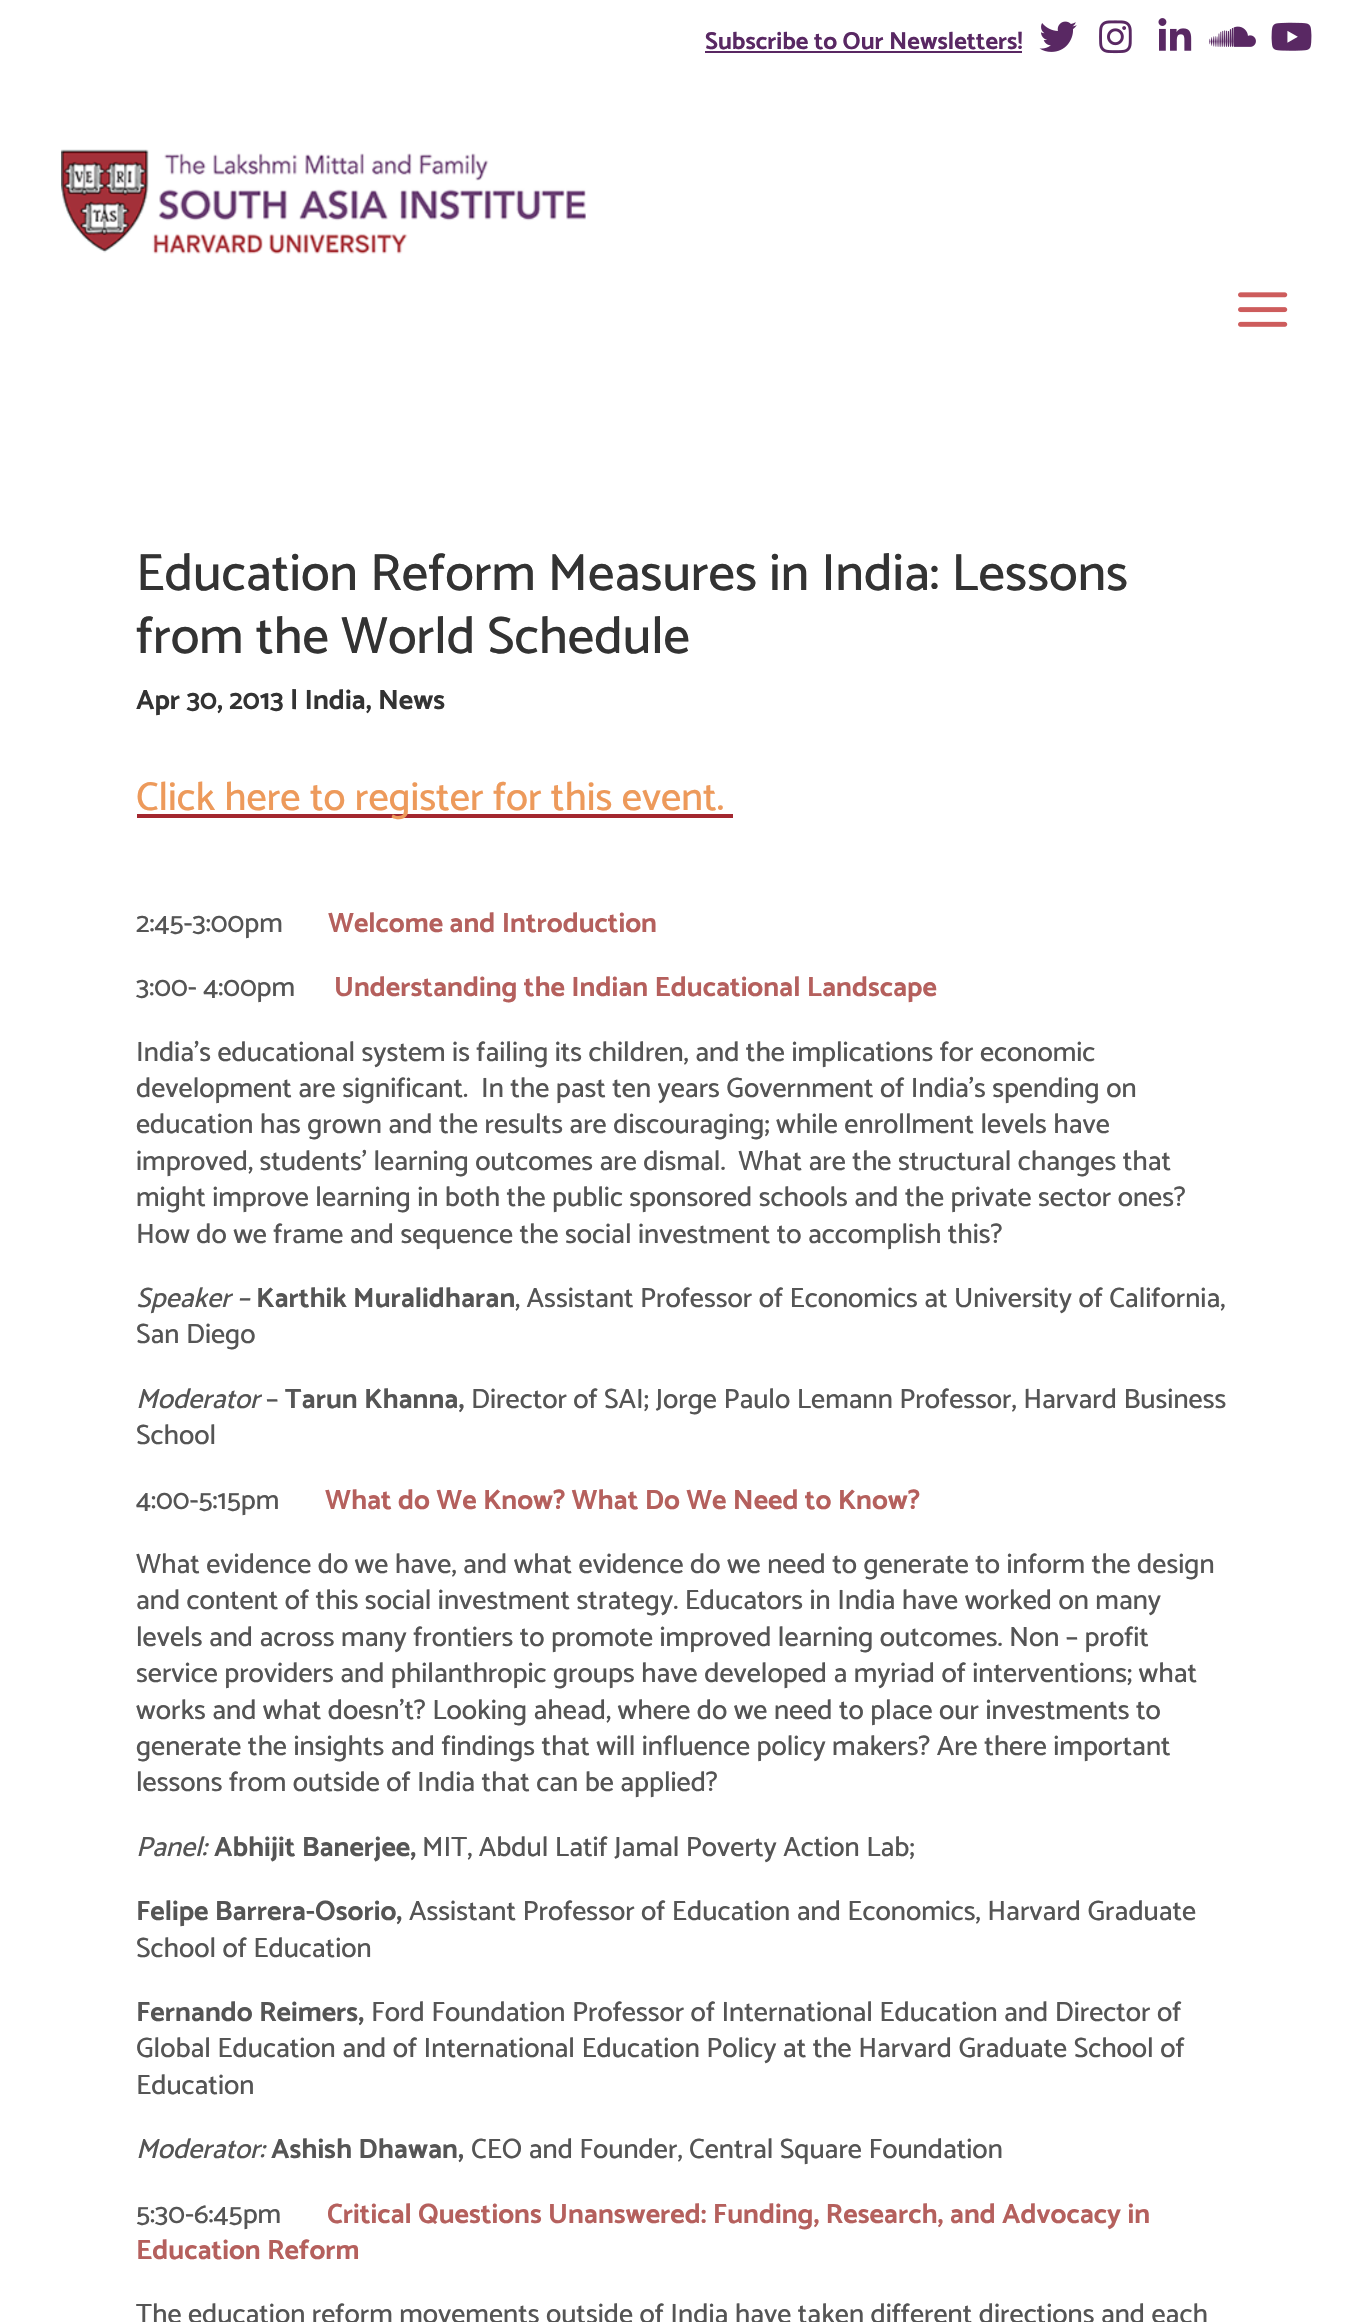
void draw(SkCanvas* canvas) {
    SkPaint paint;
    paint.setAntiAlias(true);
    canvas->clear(0xFFFFFFFF);
    SkFont font1(fontMgr->matchFamilyStyle("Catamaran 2", SkFontStyle(100, SkFontStyle::kNormal_Width, SkFontStyle::kUpright_Slant)), 24.5f);
    font1.setSubpixel(true);
    paint.setColor(0xFF592863);
    canvas->drawString("Subscribe to Our Newsletters!", 705, 49, font1, paint);
    canvas->drawRect(SkRect::MakeXYWH(705, 51, 317, 2), paint);
    canvas->drawImageRect(SkImages::DeferredFromEncodedData(SkData::MakeFromFileName("img1.png")), SkRect::MakeXYWH(1039, 21, 38, 31), SkSamplingOptions());
    canvas->drawImageRect(SkImages::DeferredFromEncodedData(SkData::MakeFromFileName("img2.png")), SkRect::MakeXYWH(1099, 20, 33, 34), SkSamplingOptions());
    canvas->drawImageRect(SkImages::DeferredFromEncodedData(SkData::MakeFromFileName("img3.png")), SkRect::MakeXYWH(1158, 18, 34, 33), SkSamplingOptions());
    canvas->drawImageRect(SkImages::DeferredFromEncodedData(SkData::MakeFromFileName("img4.png")), SkRect::MakeXYWH(1209, 26, 47, 21), SkSamplingOptions());
    canvas->drawImageRect(SkImages::DeferredFromEncodedData(SkData::MakeFromFileName("img5.png")), SkRect::MakeXYWH(1271, 22, 41, 29), SkSamplingOptions());
    canvas->drawImageRect(SkImages::DeferredFromEncodedData(SkData::MakeFromFileName("img6.png")), SkRect::MakeXYWH(61, 149, 525, 105), SkSamplingOptions());
    canvas->drawImageRect(SkImages::DeferredFromEncodedData(SkData::MakeFromFileName("img7.png")), SkRect::MakeXYWH(1238, 292, 50, 35), SkSamplingOptions());
    SkFont font2(fontMgr->matchFamilyStyle("Catamaran", SkFontStyle(100, SkFontStyle::kNormal_Width, SkFontStyle::kUpright_Slant)), 52.5f);
    font2.setSubpixel(true);
    paint.setColor(0xFF333333);
    canvas->drawString("Education Reform Measures in India: Lessons", 136, 590, font2, paint);
    canvas->drawString("from the World Schedule", 136, 653, font2, paint);
    SkFont font3(fontMgr->matchFamilyStyle("Catamaran 2", SkFontStyle(100, SkFontStyle::kNormal_Width, SkFontStyle::kUpright_Slant)), 28);
    font3.setSubpixel(true);
    canvas->drawString("Apr 30, 2013 | India, News", 136, 709, font3, paint);
    paint.setColor(0xFFA3272F);
    canvas->drawRect(SkRect::MakeXYWH(137, 814, 596, 4), paint);
    SkFont font4(fontMgr->matchFamilyStyle("Catamaran", SkFontStyle(100, SkFontStyle::kNormal_Width, SkFontStyle::kUpright_Slant)), 40.25f);
    font4.setSubpixel(true);
    paint.setColor(0xFFED9A5B);
    canvas->drawString("Click here to register for this event.", 136, 810, font4, paint);
    SkFont font5(fontMgr->matchFamilyStyle("Catamaran", SkFontStyle(100, SkFontStyle::kNormal_Width, SkFontStyle::kUpright_Slant)), 28);
    font5.setSubpixel(true);
    paint.setColor(0xFF555555);
    canvas->drawString("2:45-3:00pm", 136, 932, font5, paint);
    paint.setColor(0xFFB5605D);
    canvas->drawString("Welcome and Introduction", 328, 932, font3, paint);
    paint.setColor(0xFF555555);
    canvas->drawString("3:00- 4:00pm", 136, 996, font5, paint);
    paint.setColor(0xFFB5605D);
    canvas->drawString("Understanding the Indian Educational Landscape", 334, 996, font3, paint);
    paint.setColor(0xFF555555);
    canvas->drawString("India’s educational system is failing its children, and the implications for economic", 136, 1061, font5, paint);
    canvas->drawString("development are significant.  In the past ten years Government of India’s spending on", 136, 1097, font5, paint);
    canvas->drawString("education has grown and the results are discouraging; while enrollment levels have", 136, 1133, font5, paint);
    canvas->drawString("improved, students’ learning outcomes are dismal.  What are the structural changes that", 136, 1170, font5, paint);
    canvas->drawString("might improve learning in both the public sponsored schools and the private sector ones?", 136, 1206, font5, paint);
    canvas->drawString("How do we frame and sequence the social investment to accomplish this?", 136, 1243, font5, paint);
    SkFont font6(fontMgr->matchFamilyStyle("Catamaran", SkFontStyle(100, SkFontStyle::kNormal_Width, SkFontStyle::kItalic_Slant)), 28);
    font6.setSubpixel(true);
    canvas->drawString("Speaker –", 136, 1307, font6, paint);
    canvas->drawString("Karthik Muralidharan", 256, 1307, font3, paint);
    canvas->drawString(", Assistant Professor of Economics at University of California,", 515, 1307, font5, paint);
    canvas->drawString("San Diego", 136, 1343, font5, paint);
    canvas->drawString("Moderator", 136, 1408, font6, paint);
    canvas->drawString("–", 266, 1408, font5, paint);
    canvas->drawString("Tarun Khanna,", 285, 1408, font3, paint);
    canvas->drawString("Director of SAI; Jorge Paulo Lemann Professor, Harvard Business", 471, 1408, font5, paint);
    canvas->drawString("School", 136, 1444, font5, paint);
    canvas->drawString("4:00-5:15pm", 136, 1509, font5, paint);
    paint.setColor(0xFFB5605D);
    canvas->drawString("What do We Know? What Do We Need to Know?", 325, 1509, font3, paint);
    paint.setColor(0xFF555555);
    canvas->drawString("What evidence do we have, and what evidence do we need to generate to inform the design", 136, 1573, font5, paint);
    canvas->drawString("and content of this social investment strategy. Educators in India have worked on many", 136, 1609, font5, paint);
    canvas->drawString("levels and across many frontiers to promote improved learning outcomes. Non – profit", 136, 1646, font5, paint);
    canvas->drawString("service providers and philanthropic groups have developed a myriad of interventions; what", 136, 1682, font5, paint);
    canvas->drawString("works and what doesn’t? Looking ahead, where do we need to place our investments to", 136, 1719, font5, paint);
    canvas->drawString("generate the insights and findings that will influence policy makers? Are there important", 136, 1755, font5, paint);
    canvas->drawString("lessons from outside of India that can be applied?", 136, 1791, font5, paint);
    canvas->drawString("Panel:", 136, 1856, font6, paint);
    canvas->drawString("Abhijit Banerjee,", 214, 1856, font3, paint);
    canvas->drawString("MIT, Abdul Latif Jamal Poverty Action Lab;", 422, 1856, font5, paint);
    canvas->drawString("Felipe Barrera-Osorio,", 136, 1920, font3, paint);
    canvas->drawString("Assistant Professor of Education and Economics, Harvard Graduate", 409, 1920, font5, paint);
    canvas->drawString("School of Education", 136, 1957, font5, paint);
    canvas->drawString("Fernando Reimers,", 136, 2021, font3, paint);
    canvas->drawString("Ford Foundation Professor of International Education and Director of", 371, 2021, font5, paint);
    canvas->drawString("Global Education and of International Education Policy at the Harvard Graduate School of", 136, 2057, font5, paint);
    canvas->drawString("Education", 136, 2094, font5, paint);
    canvas->drawString("Moderator:", 136, 2158, font6, paint);
    canvas->drawString("Ashish Dhawan,", 271, 2158, font3, paint);
    canvas->drawString("CEO and Founder, Central Square Foundation", 471, 2158, font5, paint);
    canvas->drawString("5:30-6:45pm", 136, 2223, font5, paint);
    paint.setColor(0xFFB5605D);
    canvas->drawString("Critical Questions Unanswered: Funding, Research, and Advocacy in", 327, 2223, font3, paint);
    canvas->drawString("Education Reform", 136, 2259, font3, paint);
    paint.setColor(0xFF555555);
    canvas->drawString("The education reform movements outside of India have taken different directions and each", 136, 2323, font5, paint);
}
